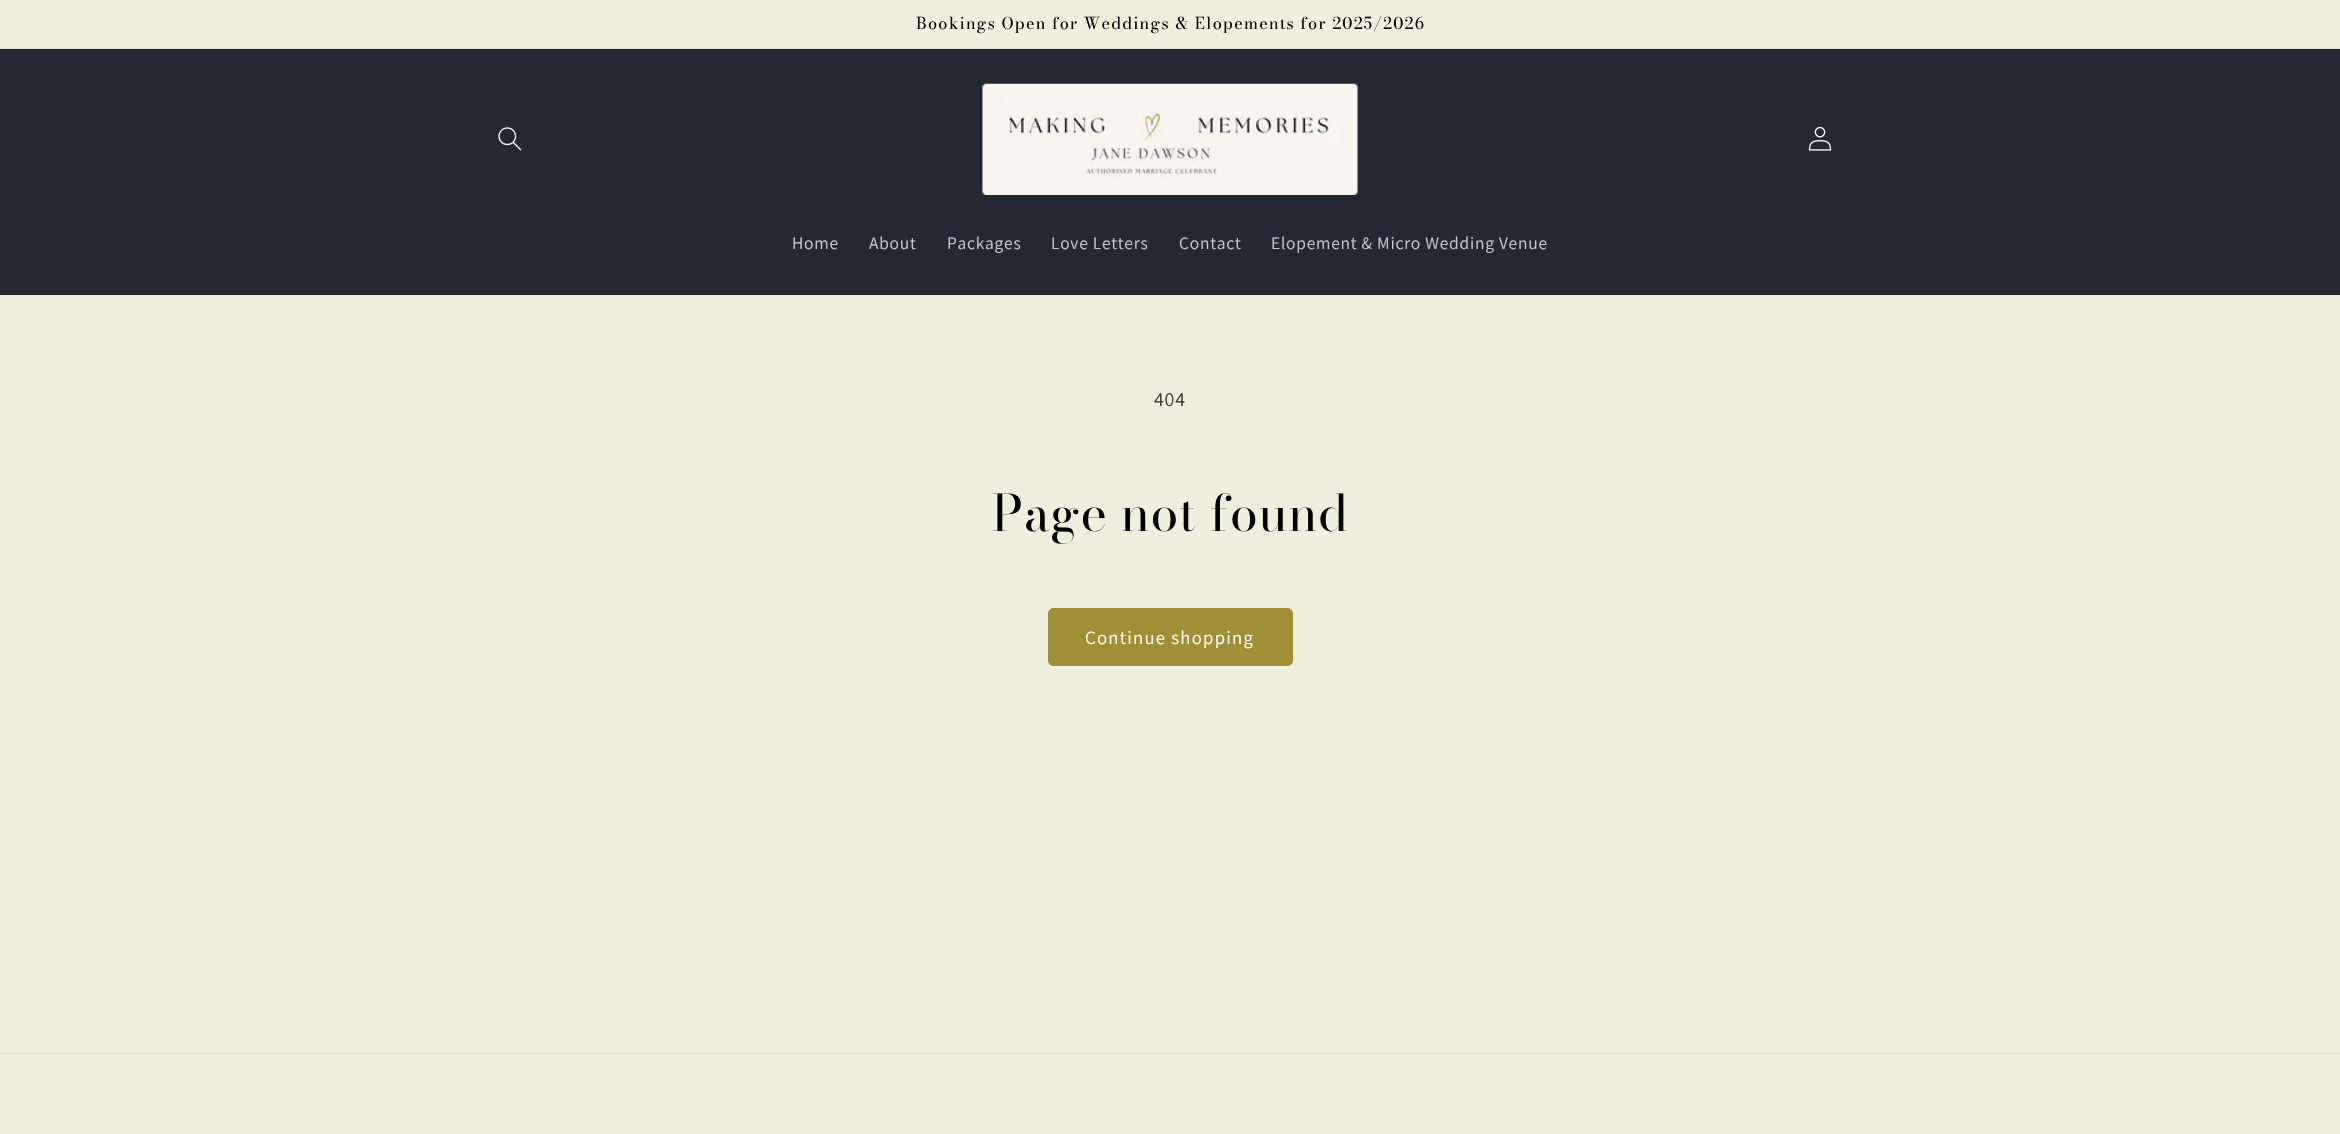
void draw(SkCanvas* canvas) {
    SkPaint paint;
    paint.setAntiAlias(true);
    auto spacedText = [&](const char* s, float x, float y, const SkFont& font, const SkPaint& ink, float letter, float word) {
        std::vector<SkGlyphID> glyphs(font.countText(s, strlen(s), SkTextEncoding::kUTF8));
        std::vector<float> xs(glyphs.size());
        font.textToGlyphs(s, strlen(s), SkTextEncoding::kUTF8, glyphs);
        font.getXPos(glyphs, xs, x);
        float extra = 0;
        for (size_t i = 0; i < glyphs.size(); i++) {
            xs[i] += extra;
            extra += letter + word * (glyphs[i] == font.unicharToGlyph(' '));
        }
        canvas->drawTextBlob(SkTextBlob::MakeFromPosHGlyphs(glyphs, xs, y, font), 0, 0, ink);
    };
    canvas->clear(0xFFEFEFDF);
    paint.setColor(0xFFDCDCCD);
    canvas->drawRect(SkRect::MakeXYWH(0, 48, 2340, 1), paint);
    SkFont font1(fontMgr->matchFamilyStyle("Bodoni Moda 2", SkFontStyle::Normal()), 16.25f);
    font1.setSubpixel(true);
    paint.setColor(0xFF000000);
    spacedText("Bookings Open for Weddings & Elopements for 2025/2026", 916, 29, font1, paint, 1.25f, 0);
    paint.setColor(0xFF242833);
    canvas->drawRect(SkRect::MakeXYWH(0, 49, 2340, 246), paint);
    canvas->drawImageRect(SkImages::DeferredFromEncodedData(SkData::MakeFromFileName("img1.png")), SkRect::MakeXYWH(498, 127, 24, 24), SkSamplingOptions());
    canvas->drawImageRect(SkImages::DeferredFromEncodedData(SkData::MakeFromFileName("img2.png")), SkRect::MakeXYWH(982, 83, 376, 112), SkSamplingOptions());
    canvas->drawImageRect(SkImages::DeferredFromEncodedData(SkData::MakeFromFileName("img3.png")), SkRect::MakeXYWH(1808, 126, 24, 25), SkSamplingOptions());
    SkFont font2(fontMgr->matchFamilyStyle("Assistant", SkFontStyle::Normal()), 17.5f);
    font2.setSubpixel(true);
    paint.setColor(0xFFC8C9CC);
    spacedText("Home", 792, 249, font2, paint, 0.75f, 0);
    spacedText("About", 869, 249, font2, paint, 0.75f, 0);
    spacedText("Packages", 947, 249, font2, paint, 0.75f, 0);
    spacedText("Love Letters", 1051, 249, font2, paint, 0.75f, 0);
    spacedText("Contact", 1179, 249, font2, paint, 0.75f, 0);
    spacedText("Elopement & Micro Wedding Venue", 1271, 249, font2, paint, 0.75f, 0);
    SkFont font3(fontMgr->matchFamilyStyle("Assistant", SkFontStyle::Normal()), 20);
    font3.setSubpixel(true);
    paint.setColor(0xFF3C3C38);
    spacedText("404", 1154, 406, font3, paint, 0.75f, 0);
    SkFont font4(fontMgr->matchFamilyStyle("Bodoni Moda", SkFontStyle::Normal()), 50);
    font4.setSubpixel(true);
    paint.setColor(0xFF000000);
    spacedText("Page not found", 992, 531, font4, paint, 0.75f, 0);
    paint.setColor(0xFF9F8F35);
    canvas->drawRoundRect(SkRect::MakeXYWH(1048, 608, 245, 58), 6, 6, paint);
    paint.setStyle(SkPaint::kStroke_Style);
    paint.setStrokeWidth(1);
    canvas->drawRoundRect(SkRect::MakeXYWH(1048.5f, 608.5f, 244, 57), 5.5f, 5.5f, paint);
    SkFont font5(fontMgr->matchFamilyStyle("Assistant", SkFontStyle::Normal()), 18.75f);
    font5.setSubpixel(true);
    paint.setStyle(SkPaint::kFill_Style);
    paint.setColor(0xFFFFFFFF);
    spacedText("Continue shopping", 1085, 644, font5, paint, 1.25f, 0);
    paint.setColor(0xFFDCDCCD);
    canvas->drawRect(SkRect::MakeXYWH(0, 1053, 2340, 1), paint);
}
